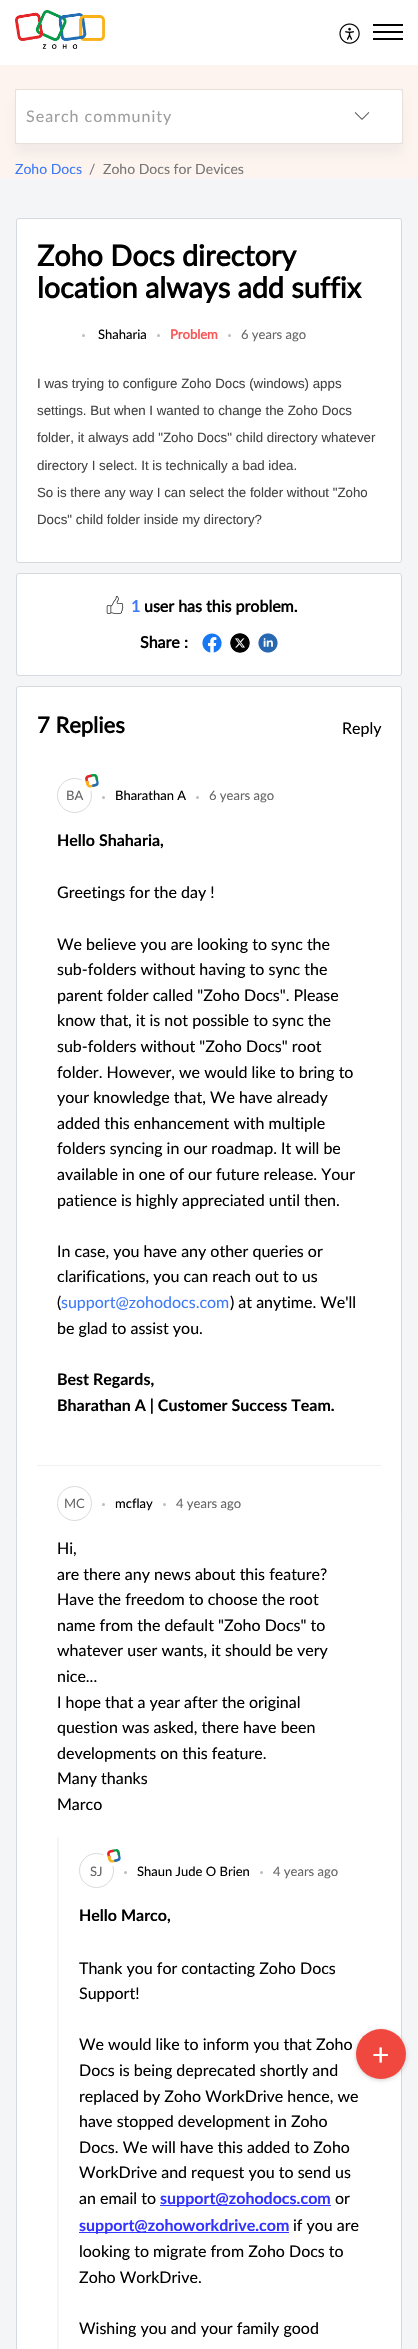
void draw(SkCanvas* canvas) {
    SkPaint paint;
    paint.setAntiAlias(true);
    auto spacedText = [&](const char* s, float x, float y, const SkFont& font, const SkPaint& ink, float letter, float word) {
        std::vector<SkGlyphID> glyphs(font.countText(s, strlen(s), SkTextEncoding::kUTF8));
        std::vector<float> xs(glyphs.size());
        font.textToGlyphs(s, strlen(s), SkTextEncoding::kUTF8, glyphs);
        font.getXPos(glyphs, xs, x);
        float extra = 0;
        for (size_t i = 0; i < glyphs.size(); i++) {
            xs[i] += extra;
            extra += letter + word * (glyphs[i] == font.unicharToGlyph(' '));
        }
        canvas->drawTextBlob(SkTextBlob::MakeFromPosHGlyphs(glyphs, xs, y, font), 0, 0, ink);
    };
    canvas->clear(0xFFF3F5F7);
    paint.setColor(0xFFFFFFFF);
    canvas->drawRect(SkRect::MakeXYWH(0, 0, 418, 65), paint);
    canvas->drawImageRect(SkImages::DeferredFromEncodedData(SkData::MakeFromFileName("img1.png")), SkRect::MakeXYWH(15, 10, 90, 39), SkSamplingOptions());
    canvas->drawImageRect(SkImages::DeferredFromEncodedData(SkData::MakeFromFileName("img2.png")), SkRect::MakeXYWH(339, 23, 21, 21), SkSamplingOptions());
    paint.setColor(0xFF000000);
    canvas->drawRect(SkRect::MakeXYWH(373, 31, 30, 2), paint);
    canvas->drawRect(SkRect::MakeXYWH(373, 24, 30, 2), paint);
    canvas->drawRect(SkRect::MakeXYWH(373, 38, 30, 2), paint);
    paint.setColor(0xFFFDF4EF);
    canvas->drawRect(SkRect::MakeXYWH(0, 65, 418, 113), paint);
    paint.setColor(0xD6F0E8E5);
    paint.setMaskFilter(SkMaskFilter::MakeBlur(kNormal_SkBlurStyle, 5));
    canvas->drawRect(SkRect::MakeXYWH(15, 99, 388, 55), paint);
    paint.setMaskFilter(nullptr);
    paint.setStyle(SkPaint::kStroke_Style);
    paint.setStrokeWidth(1);
    paint.setColor(0xFFEADFDB);
    canvas->drawRect(SkRect::MakeXYWH(15.5f, 89.5f, 387, 54), paint);
    paint.setStyle(SkPaint::kFill_Style);
    paint.setColor(0xFFFFFFFF);
    canvas->drawRoundRect(SkRect::MakeXYWH(16, 90, 386, 53), 3, 3, paint);
    canvas->drawRoundRect(SkRect::MakeXYWH(16, 90, 306, 53), 3, 3, paint);
    SkFont font1(fontMgr->matchFamilyStyle("Lato", SkFontStyle::Normal()), 16);
    font1.setSubpixel(true);
    paint.setColor(0xFF9E9E9E);
    spacedText("Search community", 26, 122, font1, paint, 1, 0);
    paint.setColor(0x80FFFFFF);
    canvas->drawPath(SkPathBuilder().moveTo(322, 90).lineTo(399, 90).cubicTo(400.5f, 90, 402, 91.5f, 402, 93).lineTo(402, 140).cubicTo(402, 141.5f, 400.5f, 143, 399, 143).lineTo(322, 143).close().detach(), paint);
    canvas->drawImageRect(SkImages::DeferredFromEncodedData(SkData::MakeFromFileName("img3.png")), SkRect::MakeXYWH(354, 112, 16, 8), SkSamplingOptions());
    paint.setColor(0xFFFFFFFF);
    canvas->drawPath(SkPathBuilder().moveTo(19, 686).lineTo(399, 686).cubicTo(400.5f, 686, 402, 687.5f, 402, 689).lineTo(402, 2349).lineTo(16, 2349).lineTo(16, 689).cubicTo(16, 687.5f, 17.5f, 686, 19, 686).close().detach(), paint);
    paint.setStyle(SkPaint::kStroke_Style);
    paint.setColor(0xFFD4DADF);
    canvas->drawRoundRect(SkRect::MakeXYWH(16.5f, 686.5f, 385, 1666), 2.5f, 2.5f, paint);
    paint.setStyle(SkPaint::kFill_Style);
    paint.setColor(0x33000000);
    paint.setMaskFilter(SkMaskFilter::MakeBlur(kNormal_SkBlurStyle, 2));
    canvas->drawRoundRect(SkRect::MakeXYWH(356, 2030, 50, 50), 25, 25, paint);
    paint.setMaskFilter(nullptr);
    paint.setColor(0xFFF0483E);
    canvas->drawCircle(381, 2054, 25, paint);
    SkFont font2(fontMgr->matchFamilyStyle("Lato", SkFontStyle::Normal()), 30);
    font2.setSubpixel(true);
    paint.setColor(0xFFFFFFFF);
    canvas->drawString("+", 372, 2065, font2, paint);
    SkFont font3(fontMgr->matchFamilyStyle("Lato", SkFontStyle::Normal()), 14);
    font3.setSubpixel(true);
    paint.setColor(0xFF3E7AF7);
    canvas->drawString("Zoho Docs", 15, 174, font3, paint);
    paint.setColor(0xFF777777);
    canvas->drawString("/", 89, 174, font3, paint);
    canvas->drawString("Zoho Docs for Devices", 103, 174, font3, paint);
    paint.setColor(0xFFFFFFFF);
    canvas->drawRoundRect(SkRect::MakeXYWH(16.5f, 218.5f, 385, 344), 2.5f, 2.5f, paint);
    paint.setStyle(SkPaint::kStroke_Style);
    paint.setColor(0xFFD4DADF);
    canvas->drawRoundRect(SkRect::MakeXYWH(16.5f, 218.5f, 385, 344), 2.5f, 2.5f, paint);
    SkFont font4(fontMgr->matchFamilyStyle("Lato", SkFontStyle::Bold()), 28.75f);
    font4.setSubpixel(true);
    paint.setStyle(SkPaint::kFill_Style);
    paint.setColor(0xFF000000);
    canvas->drawString("Zoho Docs directory", 37, 266, font4, paint);
    canvas->drawString("location always add suffix", 37, 298, font4, paint);
    paint.setColor(0xFFBDBDBD);
    canvas->drawCircle(83.5f, 335.5f, 1.5f, paint);
    SkFont font5(fontMgr->matchFamilyStyle("Lato", SkFontStyle::Normal()), 13);
    font5.setSubpixel(true);
    paint.setColor(0xFF000000);
    canvas->drawString("Shaharia", 98, 339, font5, paint);
    paint.setColor(0xFFBDBDBD);
    canvas->drawCircle(158.5f, 335.5f, 1.5f, paint);
    SkFont font6(fontMgr->matchFamilyStyle("Lato", SkFontStyle::Bold()), 13);
    font6.setSubpixel(true);
    paint.setColor(0xFFF95656);
    canvas->drawString("Problem", 170, 339, font6, paint);
    paint.setColor(0xFFBDBDBD);
    canvas->drawCircle(229.5f, 335.5f, 1.5f, paint);
    paint.setColor(0xFF666666);
    canvas->drawString("6 years ago", 241, 339, font5, paint);
    SkFont font7(fontMgr->matchFamilyStyle("Liberation Sans", SkFontStyle::Normal()), 13.3f);
    font7.setSubpixel(true);
    paint.setColor(0xFF444444);
    canvas->drawString("I was trying to configure Zoho Docs (windows) apps", 37, 388, font7, paint);
    canvas->drawString("settings. But when I wanted to change the Zoho Docs", 37, 415, font7, paint);
    canvas->drawString("folder, it always add \"Zoho Docs\" child directory whatever", 37, 442, font7, paint);
    canvas->drawString("directory I select. It is technically a bad idea.", 37, 470, font7, paint);
    canvas->drawString("So is there any way I can select the folder without \"Zoho", 37, 497, font7, paint);
    canvas->drawString("Docs\" child folder inside my directory?", 37, 524, font7, paint);
    paint.setColor(0xFFFFFFFF);
    canvas->drawRoundRect(SkRect::MakeXYWH(16.5f, 573.5f, 385, 102), 2.5f, 2.5f, paint);
    paint.setStyle(SkPaint::kStroke_Style);
    paint.setColor(0xFFD4DADF);
    canvas->drawRoundRect(SkRect::MakeXYWH(16.5f, 573.5f, 385, 102), 2.5f, 2.5f, paint);
    canvas->drawImageRect(SkImages::DeferredFromEncodedData(SkData::MakeFromFileName("img4.png")), SkRect::MakeXYWH(106, 596, 18, 19), SkSamplingOptions());
    SkFont font8(fontMgr->matchFamilyStyle("Lato", SkFontStyle::Bold()), 16);
    font8.setSubpixel(true);
    paint.setStyle(SkPaint::kFill_Style);
    paint.setColor(0xFF3E7AF7);
    canvas->drawString("1", 131, 612, font8, paint);
    paint.setColor(0xFF000000);
    canvas->drawString("user has this problem.", 144, 612, font8, paint);
    canvas->drawString("Share :", 140, 648, font8, paint);
    canvas->drawImageRect(SkImages::DeferredFromEncodedData(SkData::MakeFromFileName("img5.png")), SkRect::MakeXYWH(202, 633, 20, 20), SkSamplingOptions());
    canvas->drawImageRect(SkImages::DeferredFromEncodedData(SkData::MakeFromFileName("img6.png")), SkRect::MakeXYWH(230, 633, 20, 20), SkSamplingOptions());
    canvas->drawImageRect(SkImages::DeferredFromEncodedData(SkData::MakeFromFileName("img7.png")), SkRect::MakeXYWH(258, 633, 20, 20), SkSamplingOptions());
    SkFont font9(fontMgr->matchFamilyStyle("Lato", SkFontStyle::Bold()), 22);
    font9.setSubpixel(true);
    canvas->drawString("7 Replies", 37, 733, font9, paint);
    canvas->drawString("Reply", 342, 734, font1, paint);
    paint.setStyle(SkPaint::kStroke_Style);
    paint.setColor(0xFFDADADA);
    canvas->drawCircle(74.5f, 795.5f, 17, paint);
    paint.setStyle(SkPaint::kFill_Style);
    paint.setColor(0xFF666666);
    canvas->drawString("BA", 66, 800, font5, paint);
    paint.setColor(0xFFFFFFFF);
    canvas->drawPath(SkPathBuilder().moveTo(87, 772.5f).lineTo(92, 771.5f).cubicTo(95.5f, 770.5f, 99.5f, 773, 100, 776.5f).lineTo(101, 781.5f).cubicTo(102, 785.5f, 99.5f, 789, 95.5f, 790).lineTo(91, 791).cubicTo(87, 791.5f, 83.5f, 789.5f, 82.5f, 785.5f).lineTo(81.5f, 780.5f).cubicTo(80.5f, 777, 83, 773, 87, 772.5f).close().detach(), paint);
    canvas->drawImageRect(SkImages::DeferredFromEncodedData(SkData::MakeFromFileName("img8.png")), SkRect::MakeXYWH(85, 774, 14, 14), SkSamplingOptions());
    paint.setColor(0xFFBDBDBD);
    canvas->drawCircle(103.5f, 797.5f, 1.5f, paint);
    paint.setColor(0xFF000000);
    canvas->drawString("Bharathan A", 115, 800, font5, paint);
    paint.setColor(0xFFBDBDBD);
    canvas->drawCircle(197.5f, 797.5f, 1.5f, paint);
    paint.setColor(0xFF666666);
    canvas->drawString("6 years ago", 209, 800, font5, paint);
    SkFont font10(fontMgr->matchFamilyStyle("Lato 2", SkFontStyle::Bold()), 16);
    font10.setSubpixel(true);
    paint.setColor(0xFF000000);
    canvas->drawString("Hello Shaharia,", 57, 846, font10, paint);
    canvas->drawString("Greetings for the day !", 57, 898, font1, paint);
    canvas->drawString("We believe you are looking to sync the", 57, 950, font1, paint);
    canvas->drawString("sub-folders without having to sync the", 57, 975, font1, paint);
    canvas->drawString("parent folder called \"Zoho Docs\". Please", 57, 1001, font1, paint);
    canvas->drawString("know that, it is not possible to sync the", 57, 1026, font1, paint);
    canvas->drawString("sub-folders without \"Zoho Docs\" root", 57, 1052, font1, paint);
    canvas->drawString("folder. However, we would like to bring to", 57, 1078, font1, paint);
    canvas->drawString("your knowledge that, We have already", 57, 1103, font1, paint);
    canvas->drawString("added this enhancement with multiple", 57, 1129, font1, paint);
    canvas->drawString("folders syncing in our roadmap. It will be", 57, 1154, font1, paint);
    canvas->drawString("available in one of our future release. Your", 57, 1180, font1, paint);
    canvas->drawString("patience is highly appreciated until then.", 57, 1206, font1, paint);
    canvas->drawString("In case, you have any other queries or", 57, 1257, font1, paint);
    canvas->drawString("clarifications, you can reach out to us", 57, 1282, font1, paint);
    canvas->drawString("(", 57, 1308, font1, paint);
    paint.setColor(0xFF3E7AF7);
    canvas->drawString("support@zohodocs.com", 61, 1308, font1, paint);
    paint.setColor(0xFF000000);
    canvas->drawString(") at anytime. We'll", 230, 1308, font1, paint);
    canvas->drawString("be glad to assist you.", 57, 1334, font1, paint);
    canvas->drawString("Best Regards,", 57, 1385, font10, paint);
    canvas->drawString("Bharathan A | Customer Success Team.", 57, 1411, font10, paint);
    paint.setColor(0xFFF1F1F1);
    canvas->drawRect(SkRect::MakeXYWH(37, 1465, 344, 1), paint);
    paint.setStyle(SkPaint::kStroke_Style);
    paint.setColor(0xFFDADADA);
    canvas->drawCircle(74.5f, 1503.5f, 17, paint);
    paint.setStyle(SkPaint::kFill_Style);
    paint.setColor(0xFF666666);
    canvas->drawString("MC", 64, 1508, font5, paint);
    paint.setColor(0xFFBDBDBD);
    canvas->drawCircle(103.5f, 1504.5f, 1.5f, paint);
    paint.setColor(0xFF000000);
    canvas->drawString("mcflay", 115, 1508, font5, paint);
    paint.setColor(0xFFBDBDBD);
    canvas->drawCircle(164.5f, 1504.5f, 1.5f, paint);
    paint.setColor(0xFF666666);
    canvas->drawString("4 years ago", 176, 1508, font5, paint);
    paint.setColor(0xFF000000);
    canvas->drawString("Hi,", 57, 1554, font1, paint);
    canvas->drawString("are there any news about this feature?", 57, 1580, font1, paint);
    canvas->drawString("Have the freedom to choose the root", 57, 1605, font1, paint);
    canvas->drawString("name from the default \"Zoho Docs\" to", 57, 1631, font1, paint);
    canvas->drawString("whatever user wants, it should be very", 57, 1656, font1, paint);
    canvas->drawString("nice...", 57, 1682, font1, paint);
    canvas->drawString("I hope that a year after the original", 57, 1708, font1, paint);
    canvas->drawString("question was asked, there have been", 57, 1733, font1, paint);
    canvas->drawString("developments on this feature.", 57, 1759, font1, paint);
    canvas->drawString("Many thanks", 57, 1784, font1, paint);
    canvas->drawString("Marco", 57, 1810, font1, paint);
    paint.setColor(0xFFF3F5F7);
    canvas->drawRect(SkRect::MakeXYWH(57, 1837, 2, 512), paint);
    paint.setStyle(SkPaint::kStroke_Style);
    paint.setColor(0xFFDADADA);
    canvas->drawCircle(96.5f, 1870.5f, 17, paint);
    paint.setStyle(SkPaint::kFill_Style);
    paint.setColor(0xFFFFFFFF);
    canvas->drawPath(SkPathBuilder().moveTo(109, 1847.5f).lineTo(114, 1846.5f).cubicTo(117.5f, 1845.5f, 121.5f, 1848, 122, 1852).lineTo(123, 1856.5f).cubicTo(124, 1860.5f, 121.5f, 1864, 117.5f, 1865).lineTo(113, 1866).cubicTo(109, 1867, 105.5f, 1864.5f, 104.5f, 1860.5f).lineTo(103.5f, 1856).cubicTo(102.5f, 1852, 105, 1848.5f, 109, 1847.5f).close().detach(), paint);
    canvas->drawImageRect(SkImages::DeferredFromEncodedData(SkData::MakeFromFileName("img9.png")), SkRect::MakeXYWH(107, 1849, 14, 14), SkSamplingOptions());
    paint.setColor(0xFF666666);
    canvas->drawString("SJ", 90, 1876, font5, paint);
    paint.setColor(0xFFBDBDBD);
    canvas->drawCircle(125.5f, 1872.5f, 1.5f, paint);
    paint.setColor(0xFF000000);
    canvas->drawString("Shaun Jude O Brien", 137, 1876, font5, paint);
    paint.setColor(0xFFBDBDBD);
    canvas->drawCircle(261.5f, 1872.5f, 1.5f, paint);
    paint.setColor(0xFF666666);
    canvas->drawString("4 years ago", 273, 1876, font5, paint);
    paint.setColor(0xFF000000);
    canvas->drawString("Hello Marco,", 79, 1921, font10, paint);
    canvas->drawString("Thank you for contacting Zoho Docs", 79, 1974, font1, paint);
    canvas->drawString("Support!", 79, 1999, font1, paint);
    canvas->drawString("We would like to inform you that Zoho", 79, 2050, font1, paint);
    canvas->drawString("Docs is being deprecated shortly and", 79, 2076, font1, paint);
    canvas->drawString("replaced by Zoho WorkDrive hence, we", 79, 2102, font1, paint);
    canvas->drawString("have stopped development in Zoho", 79, 2127, font1, paint);
    canvas->drawString("Docs. We will have this added to Zoho", 79, 2153, font1, paint);
    canvas->drawString("WorkDrive and request you to send us", 79, 2178, font1, paint);
    canvas->drawString("an email to", 79, 2204, font1, paint);
    paint.setColor(0xFF3333FF);
    canvas->drawRect(SkRect::MakeXYWH(160, 2205, 171, 1), paint);
    canvas->drawString("support@zohodocs.com", 160, 2204, font10, paint);
    paint.setColor(0xFF000000);
    canvas->drawString("or", 335, 2204, font1, paint);
    paint.setColor(0xFF3333FF);
    canvas->drawRect(SkRect::MakeXYWH(79, 2232, 210, 1), paint);
    canvas->drawString("support@zohoworkdrive.com", 79, 2231, font10, paint);
    paint.setColor(0xFF000000);
    canvas->drawString("if you are", 293, 2231, font1, paint);
    canvas->drawString("looking to migrate from Zoho Docs to", 79, 2257, font1, paint);
    canvas->drawString("Zoho WorkDrive.", 79, 2283, font1, paint);
    canvas->drawString("Wishing you and your family good", 79, 2334, font1, paint);
}
